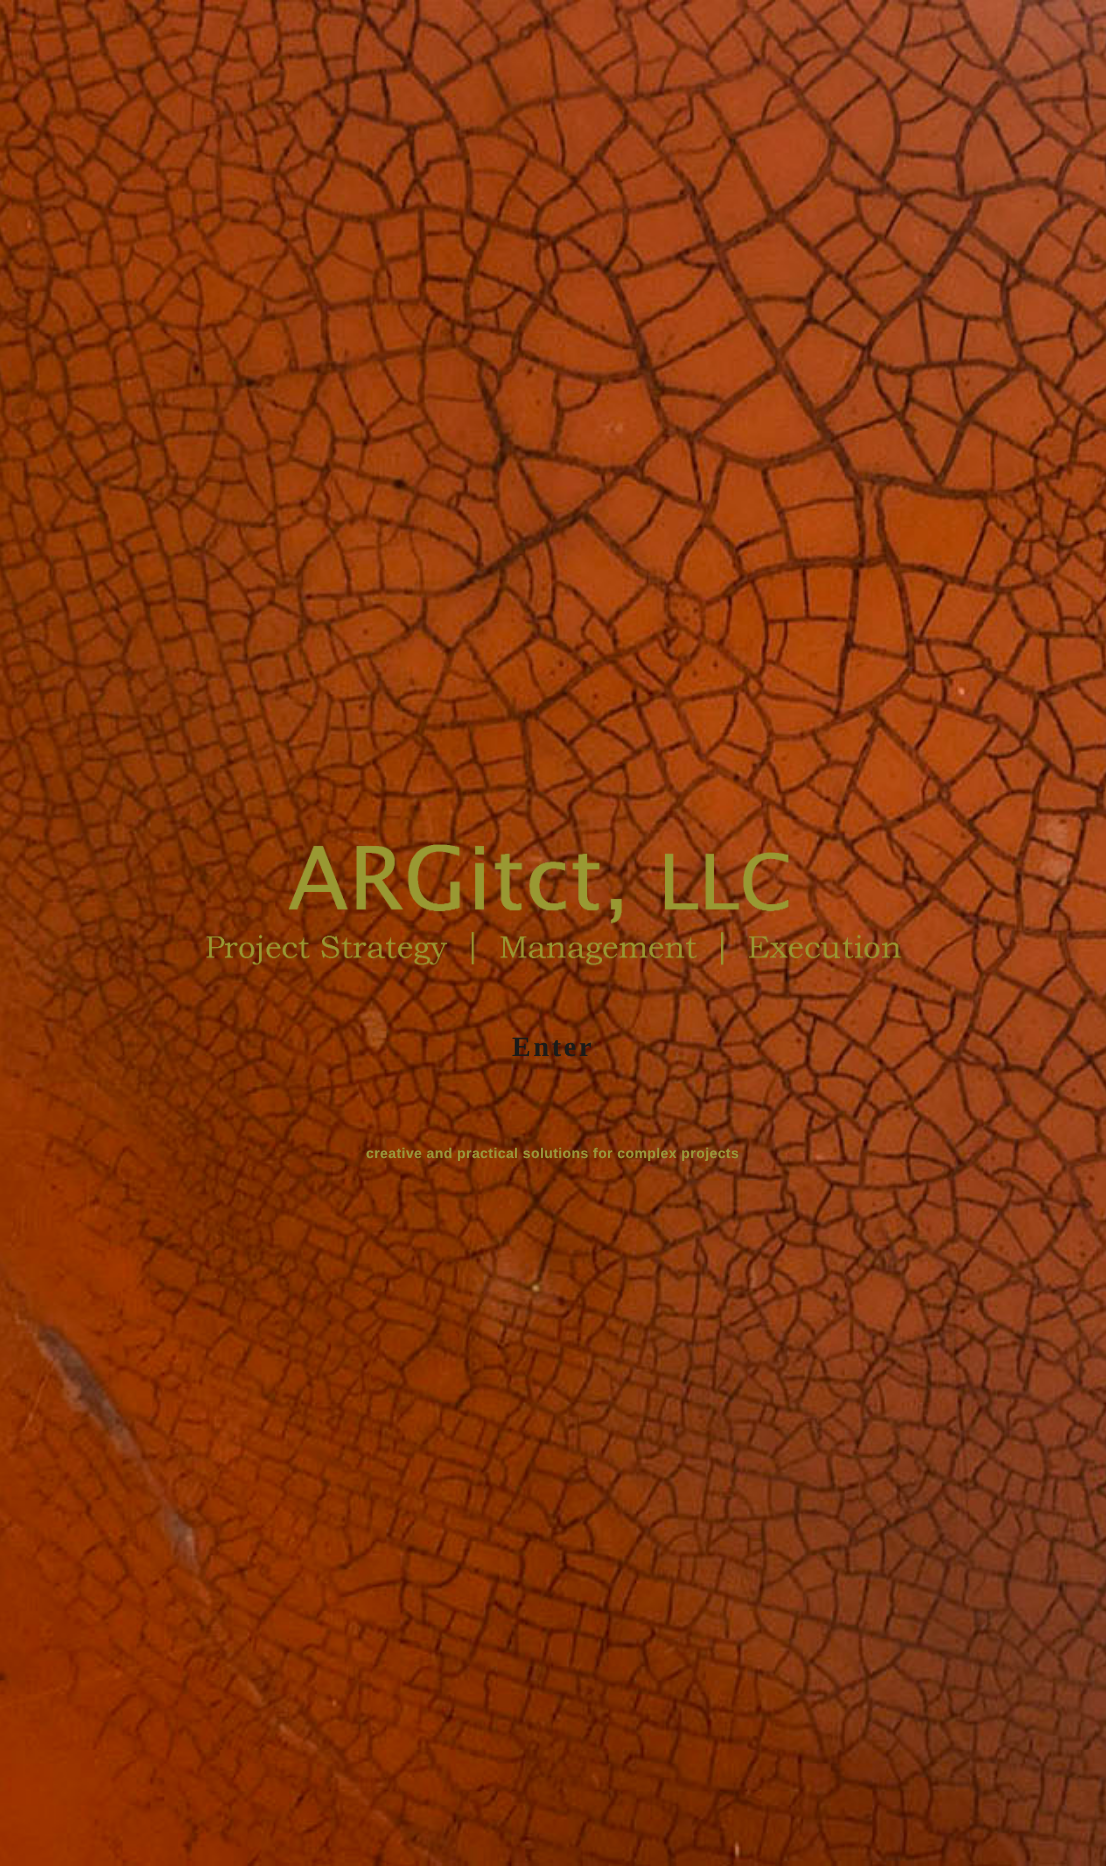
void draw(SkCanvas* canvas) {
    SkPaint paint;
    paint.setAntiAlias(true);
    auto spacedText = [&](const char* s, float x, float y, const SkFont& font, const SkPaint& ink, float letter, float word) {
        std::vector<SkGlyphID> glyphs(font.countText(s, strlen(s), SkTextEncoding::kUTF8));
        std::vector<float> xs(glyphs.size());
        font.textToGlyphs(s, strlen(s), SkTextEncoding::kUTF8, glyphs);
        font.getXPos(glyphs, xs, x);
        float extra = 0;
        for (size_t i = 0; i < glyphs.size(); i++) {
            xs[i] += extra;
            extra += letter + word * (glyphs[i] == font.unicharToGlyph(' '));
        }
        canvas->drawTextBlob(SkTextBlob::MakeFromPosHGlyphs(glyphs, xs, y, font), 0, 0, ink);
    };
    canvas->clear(0xFFFFFFFF);
    canvas->drawImageRect(SkImages::DeferredFromEncodedData(SkData::MakeFromFileName("img1.png")), SkRect::MakeXYWH(0, 0, 1106, 1866), SkSamplingOptions());
    canvas->drawImageRect(SkImages::DeferredFromEncodedData(SkData::MakeFromFileName("img2.png")), SkRect::MakeXYWH(206, 844, 696, 122), SkSamplingOptions());
    SkFont font1(fontMgr->matchFamilyStyle("Liberation Serif", SkFontStyle::Bold()), 28);
    font1.setSubpixel(true);
    paint.setColor(0xFF1B1B19);
    spacedText("Enter", 512, 1056, font1, paint, 2.75f, 0);
    SkFont font2(fontMgr->matchFamilyStyle("Liberation Sans", SkFontStyle::Bold()), 14);
    font2.setSubpixel(true);
    paint.setColor(0xFF99983B);
    spacedText("creative and practical solutions for complex projects", 366, 1158, font2, paint, 0.42f, 0);
}
